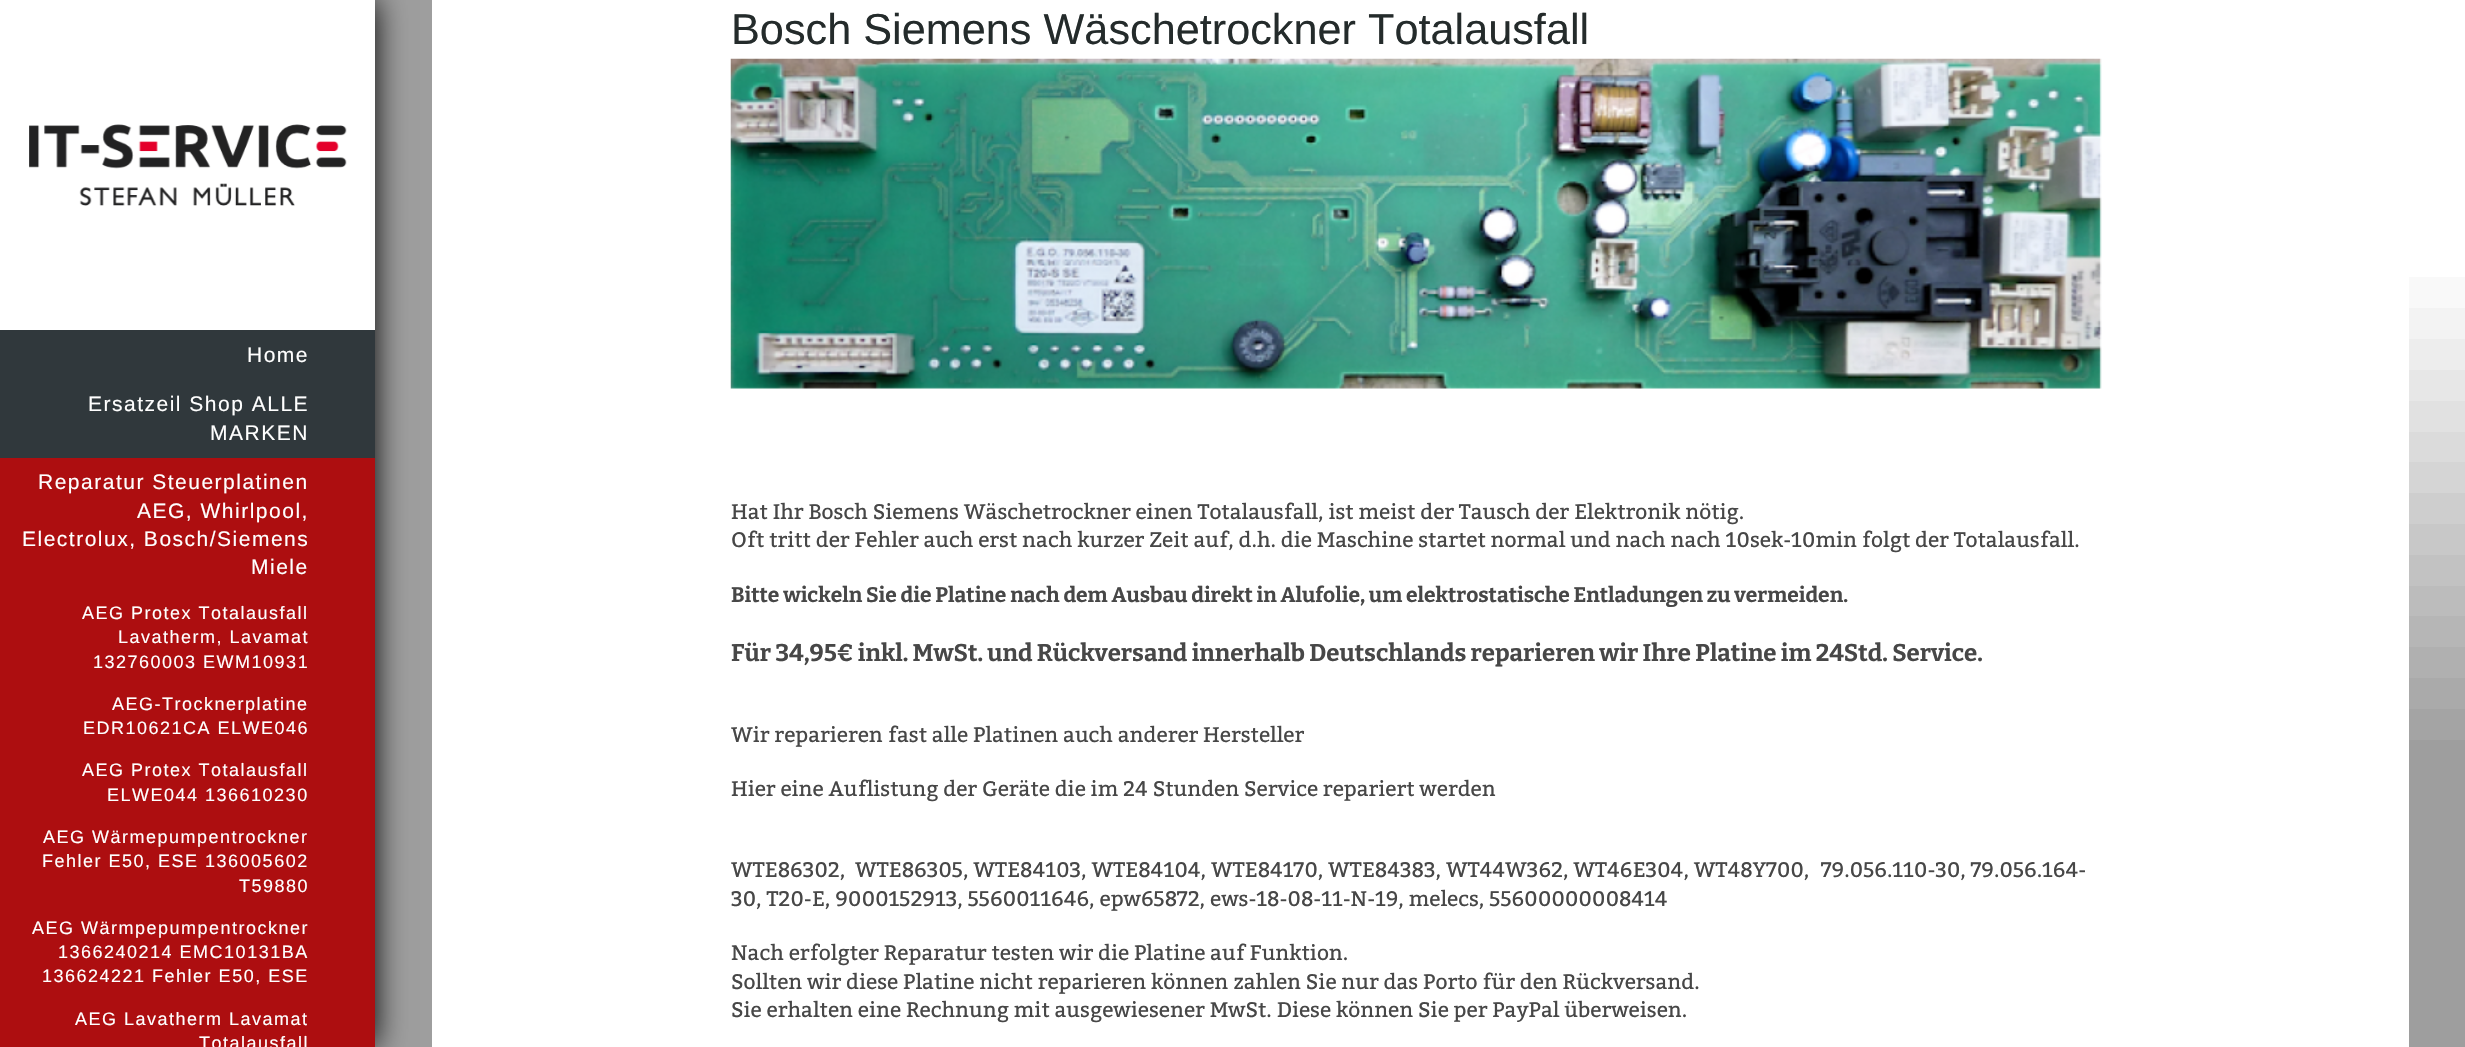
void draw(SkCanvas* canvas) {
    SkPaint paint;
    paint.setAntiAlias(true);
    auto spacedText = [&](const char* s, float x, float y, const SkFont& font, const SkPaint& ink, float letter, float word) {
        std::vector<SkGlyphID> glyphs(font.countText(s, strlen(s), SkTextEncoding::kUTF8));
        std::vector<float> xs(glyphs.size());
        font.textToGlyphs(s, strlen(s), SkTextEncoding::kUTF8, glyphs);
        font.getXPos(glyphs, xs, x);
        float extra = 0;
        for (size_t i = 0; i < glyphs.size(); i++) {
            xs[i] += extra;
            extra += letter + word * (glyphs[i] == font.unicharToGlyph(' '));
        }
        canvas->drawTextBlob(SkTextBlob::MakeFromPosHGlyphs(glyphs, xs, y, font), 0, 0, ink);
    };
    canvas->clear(0xFF9E9E9E);
    canvas->drawImageRect(SkImages::DeferredFromEncodedData(SkData::MakeFromFileName("img1.png")), SkRect::MakeXYWH(2409, 0, 56, 740), SkSamplingOptions());
    paint.setColor(0xFF000000);
    paint.setMaskFilter(SkMaskFilter::MakeBlur(kNormal_SkBlurStyle, 15));
    canvas->drawRect(SkRect::MakeXYWH(0, 0, 375, 1047), paint);
    paint.setMaskFilter(nullptr);
    paint.setColor(0xFFFFFFFF);
    canvas->drawRect(SkRect::MakeXYWH(432, 0, 1977, 1047), paint);
    SkFont font1(fontMgr->matchFamilyStyle("Liberation Sans", SkFontStyle::Normal()), 43.25f);
    font1.setSubpixel(true);
    paint.setColor(0xFF242B2B);
    canvas->drawString("Bosch Siemens Wäschetrockner Totalausfall", 731, 44, font1, paint);
    canvas->drawImageRect(SkImages::DeferredFromEncodedData(SkData::MakeFromFileName("img2.png")), SkRect::MakeXYWH(730, 58, 1372, 331), SkSamplingOptions());
    SkFont font2(fontMgr->matchFamilyStyle("Bitter", SkFontStyle::Normal()), 21);
    font2.setSubpixel(true);
    paint.setColor(0xFF474747);
    canvas->drawString("Hat Ihr Bosch Siemens Wäschetrockner einen Totalausfall, ist meist der Tausch der Elektronik nötig.", 731, 519, font2, paint);
    canvas->drawString("Oft tritt der Fehler auch erst nach kurzer Zeit auf, d.h. die Maschine startet normal und nach nach 10sek-10min folgt der Totalausfall.", 731, 547, font2, paint);
    SkFont font3(fontMgr->matchFamilyStyle("Bitter", SkFontStyle::Bold()), 21);
    font3.setSubpixel(true);
    canvas->drawString("Bitte wickeln Sie die Platine nach dem Ausbau direkt in Alufolie, um elektrostatische Entladungen zu vermeiden.", 731, 602, font3, paint);
    SkFont font4(fontMgr->matchFamilyStyle("Bitter", SkFontStyle::Bold()), 24);
    font4.setSubpixel(true);
    canvas->drawString("Für 34,95€ inkl. MwSt. und Rückversand innerhalb Deutschlands reparieren wir Ihre Platine im 24Std. Service.", 731, 661, font4, paint);
    canvas->drawString("Wir reparieren fast alle Platinen auch anderer Hersteller", 731, 742, font2, paint);
    canvas->drawString("Hier eine Auflistung der Geräte die im 24 Stunden Service repariert werden", 731, 796, font2, paint);
    canvas->drawString("WTE86302,  WTE86305, WTE84103, WTE84104, WTE84170, WTE84383, WT44W362, WT46E304, WT48Y700,", 731, 877, font2, paint);
    canvas->drawString("79.056.110-30, 79.056.164-", 1821, 877, font2, paint);
    canvas->drawString("30, T20-E, 9000152913, 5560011646, epw65872, ews-18-08-11-N-19, melecs, 55600000008414", 731, 906, font2, paint);
    canvas->drawString("Nach erfolgter Reparatur testen wir die Platine auf Funktion.", 731, 960, font2, paint);
    canvas->drawString("Sollten wir diese Platine nicht reparieren können zahlen Sie nur das Porto für den Rückversand.", 731, 989, font2, paint);
    canvas->drawString("Sie erhalten eine Rechnung mit ausgewiesener MwSt. Diese können Sie per PayPal überweisen.", 731, 1017, font2, paint);
    paint.setColor(0xFFFFFFFF);
    canvas->drawRect(SkRect::MakeXYWH(0, 0, 375, 330), paint);
    canvas->drawImageRect(SkImages::DeferredFromEncodedData(SkData::MakeFromFileName("img3.png")), SkRect::MakeXYWH(29, 124, 318, 82), SkSamplingOptions());
    paint.setColor(0xFF30383C);
    canvas->drawRect(SkRect::MakeXYWH(0, 330, 375, 128), paint);
    SkFont font5(fontMgr->matchFamilyStyle("Liberation Sans", SkFontStyle::Normal()), 21);
    font5.setSubpixel(true);
    paint.setColor(0xFFFFFFFF);
    spacedText("Home", 247, 362, font5, paint, 1.5f, 0);
    spacedText("Ersatzeil Shop ALLE", 88, 411, font5, paint, 1.5f, 0);
    spacedText("MARKEN", 210, 440, font5, paint, 1.5f, 0);
    paint.setColor(0xFFAD0E10);
    canvas->drawRect(SkRect::MakeXYWH(0, 458, 375, 589), paint);
    paint.setColor(0xFFFFFFFF);
    spacedText("Reparatur Steuerplatinen", 38, 489, font5, paint, 1.5f, 0);
    spacedText("AEG, Whirlpool,", 137, 518, font5, paint, 1.5f, 0);
    spacedText("Electrolux, Bosch/Siemens", 22, 546, font5, paint, 1.5f, 0);
    spacedText("Miele", 251, 574, font5, paint, 1.5f, 0);
    SkFont font6(fontMgr->matchFamilyStyle("Liberation Sans", SkFontStyle::Normal()), 18);
    font6.setSubpixel(true);
    spacedText("AEG Protex Totalausfall", 82, 619, font6, paint, 1.5f, 0);
    spacedText("Lavatherm, Lavamat", 118, 643, font6, paint, 1.5f, 0);
    spacedText("132760003 EWM10931", 93, 668, font6, paint, 1.5f, 0);
    spacedText("AEG-Trocknerplatine", 112, 710, font6, paint, 1.5f, 0);
    spacedText("EDR10621CA ELWE046", 83, 734, font6, paint, 1.5f, 0);
    spacedText("AEG Protex Totalausfall", 82, 776, font6, paint, 1.5f, 0);
    spacedText("ELWE044 136610230", 107, 801, font6, paint, 1.5f, 0);
    spacedText("AEG Wärmepumpentrockner", 43, 843, font6, paint, 1.5f, 0);
    spacedText("Fehler E50, ESE 136005602", 42, 867, font6, paint, 1.5f, 0);
    spacedText("T59880", 239, 892, font6, paint, 1.5f, 0);
    spacedText("AEG Wärmpepumpentrockner", 32, 934, font6, paint, 1.5f, 0);
    spacedText("1366240214 EMC10131BA", 58, 958, font6, paint, 1.5f, 0);
    spacedText("136624221 Fehler E50, ESE", 42, 982, font6, paint, 1.5f, 0);
    spacedText("AEG Lavatherm Lavamat", 75, 1025, font6, paint, 1.5f, 0);
    spacedText("Totalausfall", 199, 1049, font6, paint, 1.5f, 0);
}
